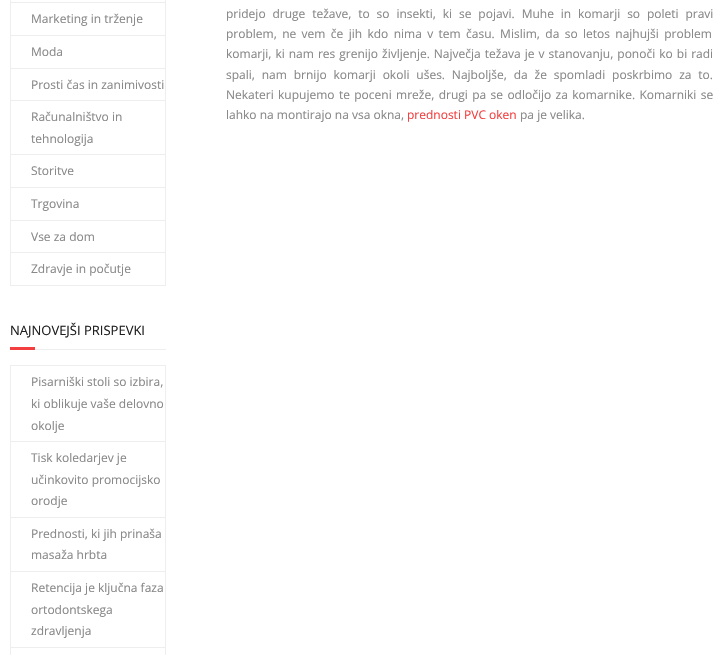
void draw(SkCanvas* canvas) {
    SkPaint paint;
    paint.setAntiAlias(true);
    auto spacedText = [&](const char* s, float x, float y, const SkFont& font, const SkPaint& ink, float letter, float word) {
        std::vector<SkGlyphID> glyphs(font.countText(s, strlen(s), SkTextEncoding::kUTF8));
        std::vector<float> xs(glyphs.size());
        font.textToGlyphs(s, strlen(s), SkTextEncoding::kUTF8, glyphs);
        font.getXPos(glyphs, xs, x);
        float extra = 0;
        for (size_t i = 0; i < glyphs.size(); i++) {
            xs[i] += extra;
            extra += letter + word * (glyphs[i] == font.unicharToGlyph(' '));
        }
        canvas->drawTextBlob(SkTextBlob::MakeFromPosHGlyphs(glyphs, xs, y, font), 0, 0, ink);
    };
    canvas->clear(0xFFFFFFFF);
    paint.setColor(0xFFEEEEEE);
    canvas->drawRect(SkRect::MakeXYWH(165, 0, 1, 286), paint);
    canvas->drawRect(SkRect::MakeXYWH(10, 0, 1, 286), paint);
    canvas->drawRect(SkRect::MakeXYWH(11, 2, 154, 1), paint);
    canvas->drawRect(SkRect::MakeXYWH(11, 35, 154, 1), paint);
    SkFont font1(fontMgr->matchFamilyStyle("Open Sans", SkFontStyle::Normal()), 12);
    font1.setSubpixel(true);
    paint.setColor(0xFF888888);
    canvas->drawString("Marketing in trženje", 31, 23, font1, paint);
    paint.setColor(0xFFEEEEEE);
    canvas->drawRect(SkRect::MakeXYWH(11, 68, 154, 1), paint);
    paint.setColor(0xFF888888);
    canvas->drawString("Moda", 31, 56, font1, paint);
    paint.setColor(0xFFEEEEEE);
    canvas->drawRect(SkRect::MakeXYWH(11, 100, 154, 1), paint);
    paint.setColor(0xFF888888);
    canvas->drawString("Prosti čas in zanimivosti", 31, 89, font1, paint);
    paint.setColor(0xFFEEEEEE);
    canvas->drawRect(SkRect::MakeXYWH(11, 154, 154, 1), paint);
    paint.setColor(0xFF888888);
    canvas->drawString("Računalništvo in", 31, 121, font1, paint);
    canvas->drawString("tehnologija", 31, 143, font1, paint);
    paint.setColor(0xFFEEEEEE);
    canvas->drawRect(SkRect::MakeXYWH(11, 187, 154, 1), paint);
    paint.setColor(0xFF888888);
    canvas->drawString("Storitve", 31, 175, font1, paint);
    paint.setColor(0xFFEEEEEE);
    canvas->drawRect(SkRect::MakeXYWH(11, 220, 154, 1), paint);
    paint.setColor(0xFF888888);
    canvas->drawString("Trgovina", 31, 208, font1, paint);
    paint.setColor(0xFFEEEEEE);
    canvas->drawRect(SkRect::MakeXYWH(11, 252, 154, 1), paint);
    paint.setColor(0xFF888888);
    canvas->drawString("Vse za dom", 31, 241, font1, paint);
    paint.setColor(0xFFEEEEEE);
    canvas->drawRect(SkRect::MakeXYWH(11, 285, 154, 1), paint);
    paint.setColor(0xFF888888);
    canvas->drawString("Zdravje in počutje", 31, 273, font1, paint);
    SkFont font2(fontMgr->matchFamilyStyle("Open Sans", SkFontStyle::Normal()), 13);
    font2.setSubpixel(true);
    paint.setColor(0xFF202020);
    canvas->drawString("NAJNOVEJŠI PRISPEVKI", 10, 335, font2, paint);
    paint.setColor(0xFFF33F3F);
    canvas->drawRect(SkRect::MakeXYWH(10, 347, 25, 3), paint);
    paint.setColor(0xFFEEEEEE);
    canvas->drawRect(SkRect::MakeXYWH(35, 349, 131, 1), paint);
    canvas->drawRect(SkRect::MakeXYWH(10, 365, 156, 1), paint);
    canvas->drawRect(SkRect::MakeXYWH(165, 365, 1, 290), paint);
    canvas->drawRect(SkRect::MakeXYWH(10, 365, 1, 290), paint);
    canvas->drawRect(SkRect::MakeXYWH(11, 441, 154, 1), paint);
    paint.setColor(0xFF888888);
    canvas->drawString("Pisarniški stoli so izbira,", 31, 386, font1, paint);
    canvas->drawString("ki oblikuje vaše delovno", 31, 408, font1, paint);
    canvas->drawString("okolje", 31, 430, font1, paint);
    paint.setColor(0xFFEEEEEE);
    canvas->drawRect(SkRect::MakeXYWH(11, 517, 154, 1), paint);
    paint.setColor(0xFF888888);
    canvas->drawString("Tisk koledarjev je", 31, 462, font1, paint);
    canvas->drawString("učinkovito promocijsko", 31, 484, font1, paint);
    canvas->drawString("orodje", 31, 505, font1, paint);
    paint.setColor(0xFFEEEEEE);
    canvas->drawRect(SkRect::MakeXYWH(11, 571, 154, 1), paint);
    paint.setColor(0xFF888888);
    canvas->drawString("Prednosti, ki jih prinaša", 31, 538, font1, paint);
    canvas->drawString("masaža hrbta", 31, 559, font1, paint);
    paint.setColor(0xFFEEEEEE);
    canvas->drawRect(SkRect::MakeXYWH(11, 647, 154, 1), paint);
    paint.setColor(0xFF888888);
    canvas->drawString("Retencija je ključna faza", 31, 592, font1, paint);
    canvas->drawString("ortodontskega", 31, 614, font1, paint);
    canvas->drawString("zdravljenja", 31, 635, font1, paint);
    spacedText("pridejo druge težave, to so insekti, ki se pojavi. Muhe in komarji so poleti pravi", 226, 18, font1, paint, 0, 3.75f);
    spacedText("problem, ne vem če jih kdo nima v tem času. Mislim, da so letos najhujši problem", 226, 38, font1, paint, 0, 2.25f);
    spacedText("komarji, ki nam res grenijo življenje. Največja težava je v stanovanju, ponoči ko bi radi", 226, 58, font1, paint, 0, 0.9f);
    spacedText("spali, nam brnijo komarji okoli ušes. Najboljše, da že spomladi poskrbimo za to.", 226, 79, font1, paint, 0, 3.75f);
    spacedText("Nekateri kupujemo te poceni mreže, drugi pa se odločijo za komarnike. Komarniki se", 226, 99, font1, paint, 0, 1.25f);
    canvas->drawString("lahko na montirajo na vsa okna,", 226, 119, font1, paint);
    paint.setColor(0xFFF33F3F);
    canvas->drawString("prednosti PVC oken", 407, 119, font1, paint);
    paint.setColor(0xFF888888);
    canvas->drawString("pa je velika.", 520, 119, font1, paint);
}
